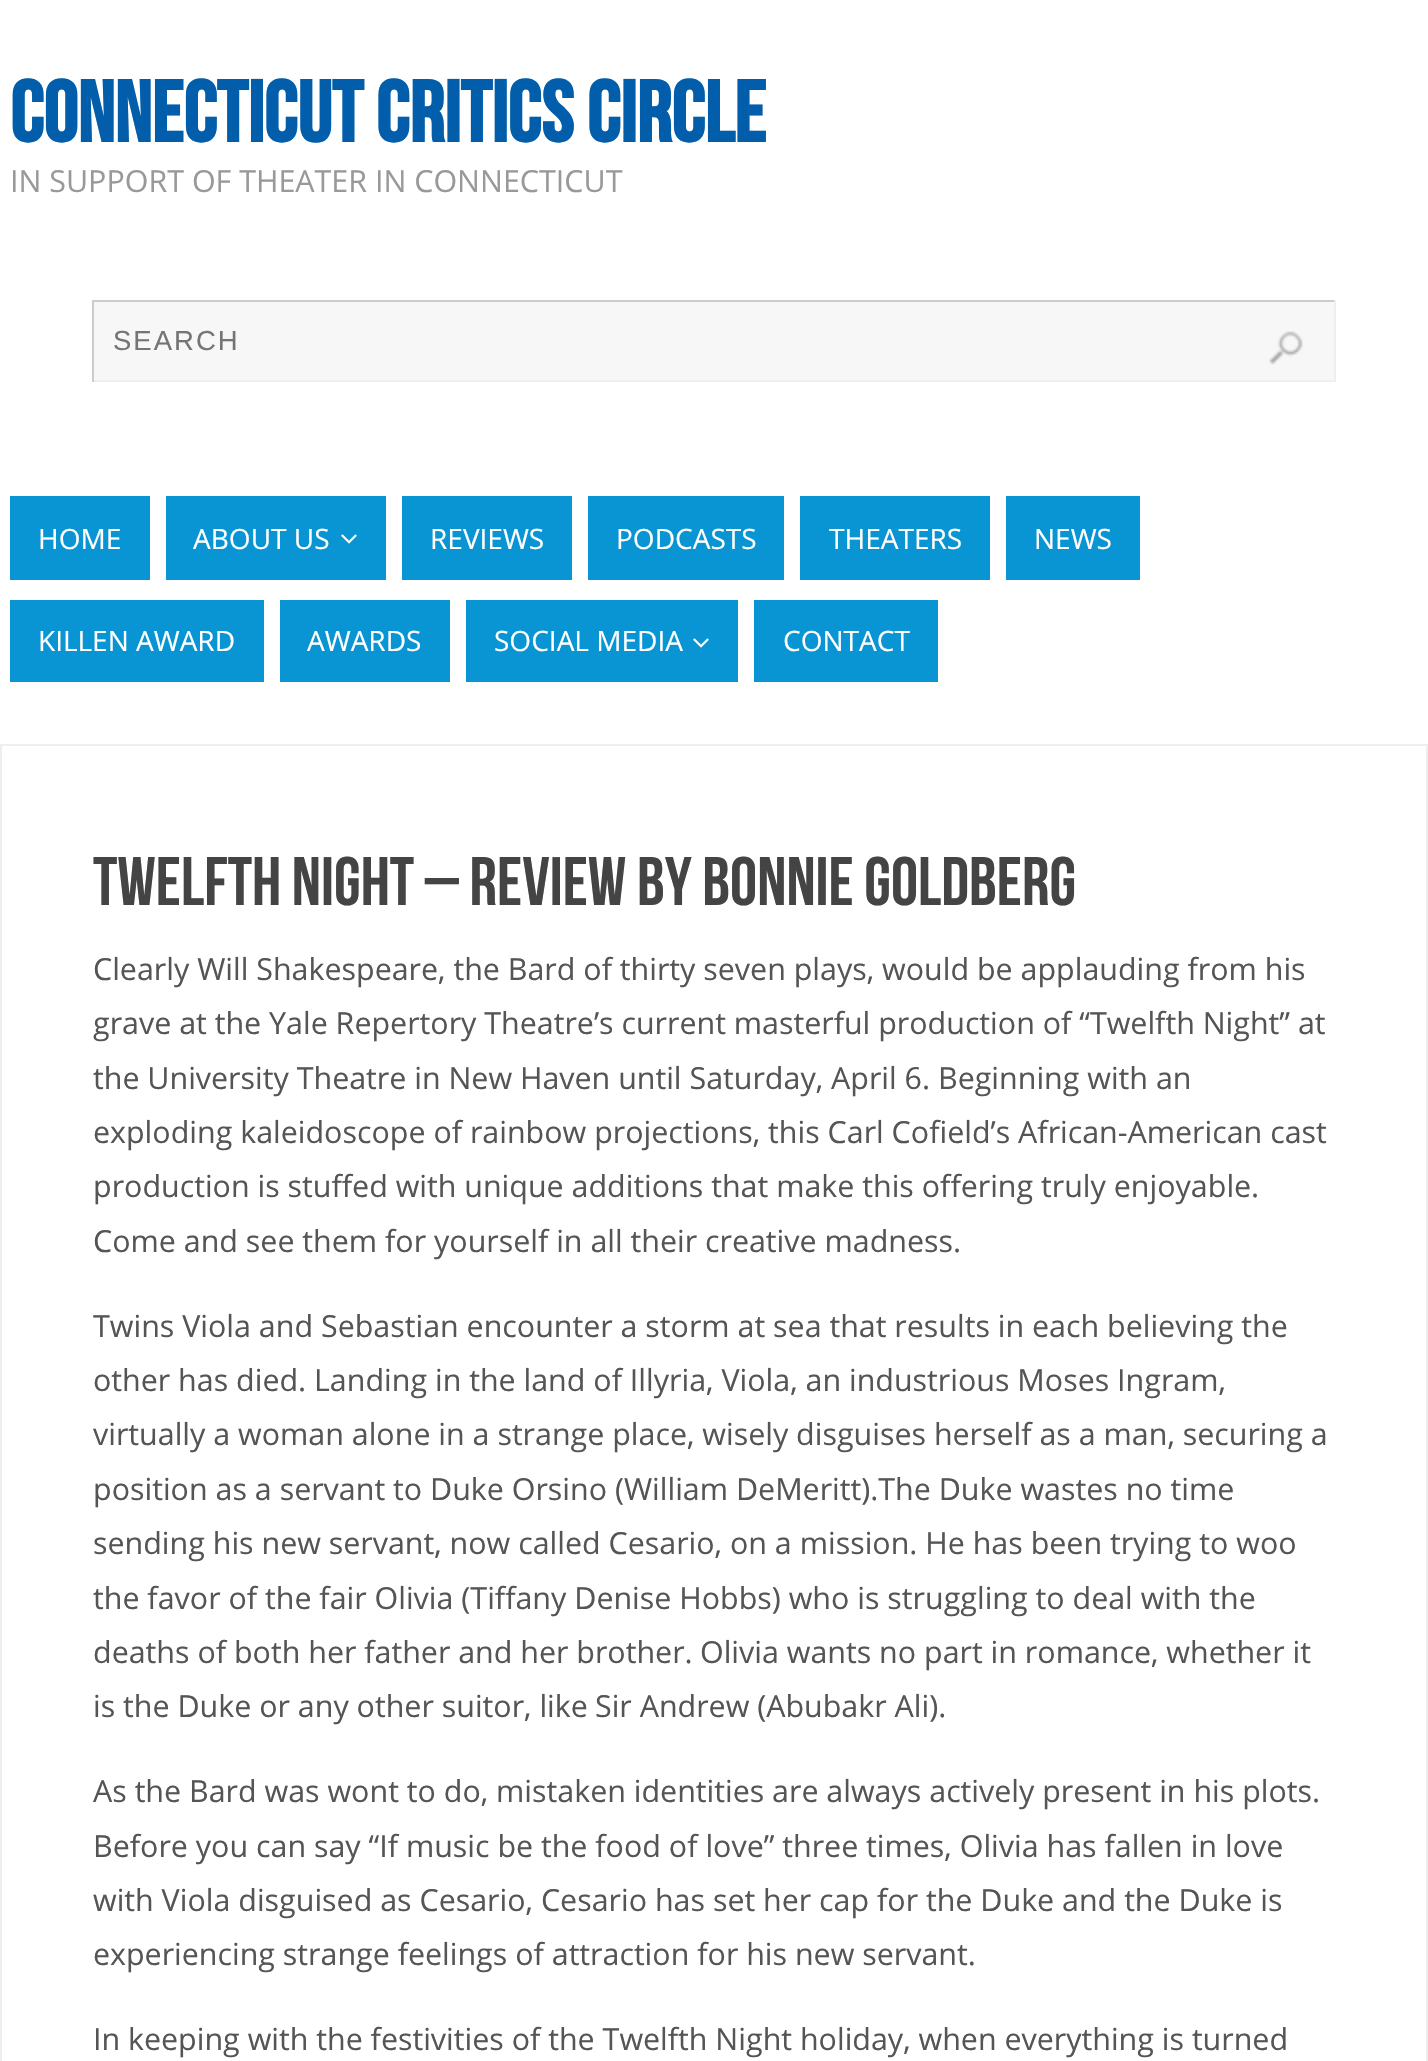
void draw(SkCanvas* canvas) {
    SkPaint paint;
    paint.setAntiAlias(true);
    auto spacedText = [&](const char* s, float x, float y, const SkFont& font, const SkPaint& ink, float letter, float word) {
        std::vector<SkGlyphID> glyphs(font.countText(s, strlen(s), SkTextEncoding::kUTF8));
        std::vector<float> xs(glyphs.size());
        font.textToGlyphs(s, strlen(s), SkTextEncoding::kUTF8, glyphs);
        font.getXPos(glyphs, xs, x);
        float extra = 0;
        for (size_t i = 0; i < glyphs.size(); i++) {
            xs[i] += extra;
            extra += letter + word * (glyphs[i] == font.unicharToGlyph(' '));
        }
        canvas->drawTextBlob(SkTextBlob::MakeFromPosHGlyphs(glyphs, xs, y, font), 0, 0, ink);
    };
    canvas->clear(0xFFFFFFFF);
    SkFont font1(fontMgr->matchFamilyStyle("Bebas Neue", SkFontStyle::Bold()), 86.5f);
    font1.setSubpixel(true);
    paint.setColor(0xFF025EAB);
    canvas->drawString("CONNECTICUT CRITICS CIRCLE", 10, 142, font1, paint);
    SkFont font2(fontMgr->matchFamilyStyle("Open Sans", SkFontStyle::Normal()), 30.4f);
    font2.setSubpixel(true);
    paint.setColor(0xFF999999);
    canvas->drawString("IN SUPPORT OF THEATER IN CONNECTICUT", 10, 192, font2, paint);
    paint.setColor(0xFFF7F7F7);
    canvas->drawRect(SkRect::MakeXYWH(94, 302, 1240, 78), paint);
    paint.setColor(0xFFCCCCCC);
    canvas->drawRect(SkRect::MakeXYWH(92, 300, 1244, 2), paint);
    paint.setColor(0xFFEEEEEE);
    canvas->drawRect(SkRect::MakeXYWH(1334, 300, 2, 82), paint);
    canvas->drawRect(SkRect::MakeXYWH(92, 380, 1244, 2), paint);
    paint.setColor(0xFFCCCCCC);
    canvas->drawRect(SkRect::MakeXYWH(92, 300, 2, 82), paint);
    SkFont font3(fontMgr->matchFamilyStyle("Liberation Sans", SkFontStyle::Normal()), 27.5f);
    font3.setSubpixel(true);
    paint.setColor(0xFF757575);
    spacedText("SEARCH", 113, 350, font3, paint, 2, 0);
    canvas->drawImageRect(SkImages::DeferredFromEncodedData(SkData::MakeFromFileName("img1.png")), SkRect::MakeXYWH(1269, 331, 34, 34), SkSamplingOptions());
    paint.setColor(0xFF0995D3);
    canvas->drawRect(SkRect::MakeXYWH(10, 496, 140, 84), paint);
    SkFont font4(fontMgr->matchFamilyStyle("Open Sans", SkFontStyle::Normal()), 28);
    font4.setSubpixel(true);
    paint.setColor(0xFFFFFFFF);
    canvas->drawString("HOME", 38, 549, font4, paint);
    paint.setColor(0xFF0995D3);
    canvas->drawRect(SkRect::MakeXYWH(166, 496, 220, 84), paint);
    paint.setColor(0xFFFFFFFF);
    canvas->drawString("ABOUT US", 193, 549, font4, paint);
    canvas->drawImageRect(SkImages::DeferredFromEncodedData(SkData::MakeFromFileName("img2.png")), SkRect::MakeXYWH(341, 534, 16, 10), SkSamplingOptions());
    paint.setColor(0xFF0995D3);
    canvas->drawRect(SkRect::MakeXYWH(402, 496, 170, 84), paint);
    paint.setColor(0xFFFFFFFF);
    canvas->drawString("REVIEWS", 430, 549, font4, paint);
    paint.setColor(0xFF0995D3);
    canvas->drawRect(SkRect::MakeXYWH(588, 496, 196, 84), paint);
    paint.setColor(0xFFFFFFFF);
    canvas->drawString("PODCASTS", 616, 549, font4, paint);
    paint.setColor(0xFF0995D3);
    canvas->drawRect(SkRect::MakeXYWH(800, 496, 190, 84), paint);
    paint.setColor(0xFFFFFFFF);
    canvas->drawString("THEATERS", 829, 549, font4, paint);
    paint.setColor(0xFF0995D3);
    canvas->drawRect(SkRect::MakeXYWH(1006, 496, 134, 84), paint);
    paint.setColor(0xFFFFFFFF);
    canvas->drawString("NEWS", 1034, 549, font4, paint);
    paint.setColor(0xFF0995D3);
    canvas->drawRect(SkRect::MakeXYWH(10, 600, 254, 82), paint);
    paint.setColor(0xFFFFFFFF);
    canvas->drawString("KILLEN AWARD", 38, 651, font4, paint);
    paint.setColor(0xFF0995D3);
    canvas->drawRect(SkRect::MakeXYWH(280, 600, 170, 82), paint);
    paint.setColor(0xFFFFFFFF);
    canvas->drawString("AWARDS", 307, 651, font4, paint);
    paint.setColor(0xFF0995D3);
    canvas->drawRect(SkRect::MakeXYWH(466, 600, 272, 82), paint);
    paint.setColor(0xFFFFFFFF);
    canvas->drawString("SOCIAL MEDIA", 494, 651, font4, paint);
    canvas->drawImageRect(SkImages::DeferredFromEncodedData(SkData::MakeFromFileName("img2.png")), SkRect::MakeXYWH(693, 638, 16, 10), SkSamplingOptions());
    paint.setColor(0xFF0995D3);
    canvas->drawRect(SkRect::MakeXYWH(754, 600, 184, 82), paint);
    paint.setColor(0xFFFFFFFF);
    canvas->drawString("CONTACT", 783, 651, font4, paint);
    paint.setStyle(SkPaint::kStroke_Style);
    paint.setStrokeWidth(2);
    paint.setColor(0xFFEEEEEE);
    canvas->drawRect(SkRect::MakeXYWH(1, 745, 1426, 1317), paint);
    SkFont font5(fontMgr->matchFamilyStyle("Bebas Neue", SkFontStyle::Normal()), 68.4f);
    font5.setSubpixel(true);
    paint.setStyle(SkPaint::kFill_Style);
    paint.setColor(0xFF444444);
    canvas->drawString("Twelfth Night – Review by Bonnie Goldberg", 93, 905, font5, paint);
    paint.setColor(0xFF555555);
    canvas->drawString("Clearly Will Shakespeare, the Bard of thirty seven plays, would be applauding from his", 93, 980, font2, paint);
    canvas->drawString("grave at the Yale Repertory Theatre’s current masterful production of “Twelfth Night” at", 93, 1034, font2, paint);
    canvas->drawString("the University Theatre in New Haven until Saturday, April 6. Beginning with an", 93, 1089, font2, paint);
    canvas->drawString("exploding kaleidoscope of rainbow projections, this Carl Cofield’s African-American cast", 93, 1143, font2, paint);
    canvas->drawString("production is stuffed with unique additions that make this offering truly enjoyable.", 93, 1197, font2, paint);
    canvas->drawString("Come and see them for yourself in all their creative madness.", 93, 1252, font2, paint);
    canvas->drawString("Twins Viola and Sebastian encounter a storm at sea that results in each believing the", 93, 1337, font2, paint);
    canvas->drawString("other has died. Landing in the land of Illyria, Viola, an industrious Moses Ingram,", 93, 1391, font2, paint);
    canvas->drawString("virtually a woman alone in a strange place, wisely disguises herself as a man, securing a", 93, 1445, font2, paint);
    canvas->drawString("position as a servant to Duke Orsino (William DeMeritt).The Duke wastes no time", 93, 1500, font2, paint);
    canvas->drawString("sending his new servant, now called Cesario, on a mission. He has been trying to woo", 93, 1554, font2, paint);
    canvas->drawString("the favor of the fair Olivia (Tiffany Denise Hobbs) who is struggling to deal with the", 93, 1609, font2, paint);
    canvas->drawString("deaths of both her father and her brother.", 93, 1663, font2, paint);
    canvas->drawString("Olivia wants no part in romance, whether it", 700, 1663, font2, paint);
    canvas->drawString("is the Duke or any other suitor, like", 93, 1717, font2, paint);
    canvas->drawString("Sir Andrew (Abubakr Ali).", 595, 1717, font2, paint);
    canvas->drawString("As the Bard was wont to do, mistaken identities are always actively present in his plots.", 93, 1802, font2, paint);
    canvas->drawString("Before you can say “If music be the food of love” three times, Olivia has fallen in love", 93, 1857, font2, paint);
    canvas->drawString("with Viola disguised as Cesario, Cesario has set her cap for the Duke and the Duke is", 93, 1911, font2, paint);
    canvas->drawString("experiencing strange feelings of attraction for his new servant.", 93, 1965, font2, paint);
    canvas->drawString("In keeping with the festivities of the Twelfth Night holiday, when everything is turned", 93, 2050, font2, paint);
}
